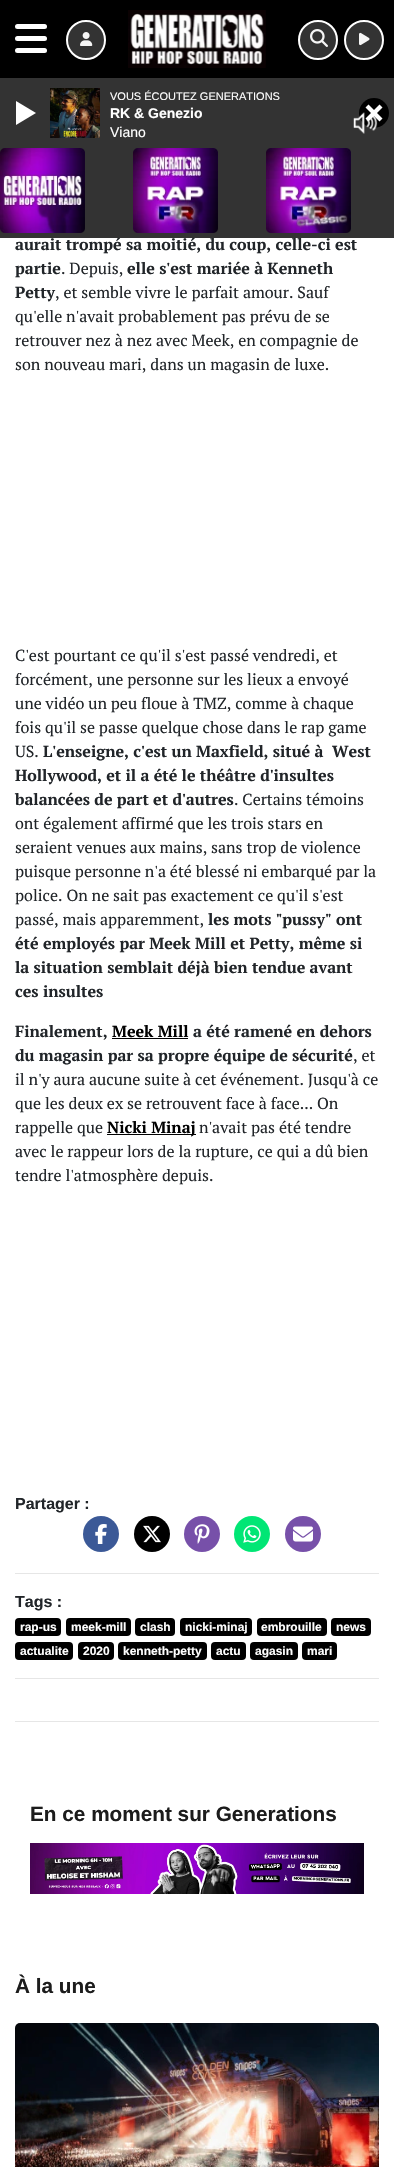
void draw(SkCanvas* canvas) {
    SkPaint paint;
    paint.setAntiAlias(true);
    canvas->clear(0xFFFFFFFF);
    SkFont font1(fontMgr->matchFamilyStyle("PT Serif", SkFontStyle::Bold()), 16);
    font1.setSubpixel(true);
    paint.setColor(0xFF212529);
    canvas->drawString("aurait trompé sa moitié, du coup, celle-ci est", 15, 250, font1, paint);
    paint.setColor(0xFF333333);
    canvas->drawRect(SkRect::MakeXYWH(0, 78, 394, 160), paint);
    canvas->drawImageRect(SkImages::DeferredFromEncodedData(SkData::MakeFromFileName("img1.png")), SkRect::MakeXYWH(50, 88, 50, 50), SkSamplingOptions());
    SkFont font2(fontMgr->matchFamilyStyle("Liberation Sans", SkFontStyle::Normal()), 11);
    font2.setSubpixel(true);
    paint.setColor(0xFFFFFFFF);
    canvas->drawString("VOUS ÉCOUTEZ GENERATIONS", 110, 100, font2, paint);
    SkFont font3(fontMgr->matchFamilyStyle("Liberation Sans", SkFontStyle::Bold()), 14);
    font3.setSubpixel(true);
    canvas->drawString("RK & Genezio", 110, 118, font3, paint);
    SkFont font4(fontMgr->matchFamilyStyle("Liberation Sans", SkFontStyle::Normal()), 14);
    font4.setSubpixel(true);
    canvas->drawString("Viano", 110, 137, font4, paint);
    canvas->drawPath(SkPathBuilder().moveTo(16, 125).lineTo(16, 101).lineTo(36, 113).close().detach(), paint);
    paint.setColor(0xFF000000);
    canvas->drawCircle(374, 113, 15, paint);
    paint.setColor(0xFFFFFFFF);
    canvas->drawPath(SkPathBuilder().moveTo(368.5f, 104.5f).lineTo(382.5f, 118.5f).lineTo(379.5f, 121.5f).lineTo(365.5f, 107.5f).close().detach(), paint);
    canvas->drawPath(SkPathBuilder().moveTo(365.5f, 118.5f).lineTo(379.5f, 104.5f).lineTo(382.5f, 107.5f).lineTo(368.5f, 121.5f).close().detach(), paint);
    canvas->drawImageRect(SkImages::DeferredFromEncodedData(SkData::MakeFromFileName("img2.png")), SkRect::MakeXYWH(353, 112, 25, 22), SkSamplingOptions());
    canvas->drawImageRect(SkImages::DeferredFromEncodedData(SkData::MakeFromFileName("img3.png")), SkRect::MakeXYWH(0, 148, 85, 85), SkSamplingOptions());
    canvas->drawImageRect(SkImages::DeferredFromEncodedData(SkData::MakeFromFileName("img4.png")), SkRect::MakeXYWH(133, 148, 85, 85), SkSamplingOptions());
    canvas->drawImageRect(SkImages::DeferredFromEncodedData(SkData::MakeFromFileName("img5.png")), SkRect::MakeXYWH(266, 148, 85, 85), SkSamplingOptions());
    paint.setColor(0xFF000000);
    canvas->drawRect(SkRect::MakeXYWH(0, 0, 394, 78), paint);
    paint.setColor(0xFFFFFFFF);
    canvas->drawRoundRect(SkRect::MakeXYWH(15, 24, 32, 5), 2.5f, 2.5f, paint);
    canvas->drawRoundRect(SkRect::MakeXYWH(15, 36, 32, 5), 2.5f, 2.5f, paint);
    canvas->drawRoundRect(SkRect::MakeXYWH(15, 48, 32, 5), 2.5f, 2.5f, paint);
    paint.setColor(0xFF333333);
    canvas->drawCircle(86, 40, 19, paint);
    paint.setStyle(SkPaint::kStroke_Style);
    paint.setStrokeWidth(2);
    paint.setColor(0xFFFFFFFF);
    canvas->drawCircle(86, 40, 19, paint);
    canvas->drawImageRect(SkImages::DeferredFromEncodedData(SkData::MakeFromFileName("img6.png")), SkRect::MakeXYWH(80, 32, 13, 14), SkSamplingOptions());
    canvas->drawImageRect(SkImages::DeferredFromEncodedData(SkData::MakeFromFileName("img7.png")), SkRect::MakeXYWH(128, 10, 138, 58), SkSamplingOptions());
    paint.setStyle(SkPaint::kFill_Style);
    paint.setColor(0xFF333333);
    canvas->drawCircle(318, 40, 19, paint);
    paint.setStyle(SkPaint::kStroke_Style);
    paint.setColor(0xFFFFFFFF);
    canvas->drawCircle(318, 40, 19, paint);
    canvas->drawImageRect(SkImages::DeferredFromEncodedData(SkData::MakeFromFileName("img8.png")), SkRect::MakeXYWH(310, 29, 18, 18), SkSamplingOptions());
    paint.setStyle(SkPaint::kFill_Style);
    paint.setColor(0xFF333333);
    canvas->drawCircle(364, 40, 19, paint);
    paint.setStyle(SkPaint::kStroke_Style);
    paint.setColor(0xFFFFFFFF);
    canvas->drawCircle(364, 40, 19, paint);
    canvas->drawImageRect(SkImages::DeferredFromEncodedData(SkData::MakeFromFileName("img9.png")), SkRect::MakeXYWH(359, 32, 11, 14), SkSamplingOptions());
    paint.setStyle(SkPaint::kFill_Style);
    paint.setColor(0xFF212529);
    canvas->drawString("partie", 15, 274, font1, paint);
    SkFont font5(fontMgr->matchFamilyStyle("PT Serif", SkFontStyle::Normal()), 16);
    font5.setSubpixel(true);
    canvas->drawString(". Depuis,", 61, 274, font5, paint);
    canvas->drawString("elle s'est mariée à Kenneth", 127, 274, font1, paint);
    canvas->drawString("Petty", 15, 298, font1, paint);
    canvas->drawString(", et semble vivre le parfait amour. Sauf", 55, 298, font5, paint);
    canvas->drawString("qu'elle n'avait probablement pas prévu de se", 15, 322, font5, paint);
    canvas->drawString("retrouver nez à nez avec Meek, en compagnie de", 15, 346, font5, paint);
    canvas->drawString("son nouveau mari, dans un magasin de luxe.", 15, 370, font5, paint);
    canvas->drawString("C'est pourtant ce qu'il s'est passé vendredi, et", 15, 661, font5, paint);
    canvas->drawString("forcément, une personne sur les lieux a envoyé", 15, 685, font5, paint);
    canvas->drawString("une vidéo un peu floue à TMZ, comme à chaque", 15, 709, font5, paint);
    canvas->drawString("fois qu'il se passe quelque chose dans le rap game", 15, 733, font5, paint);
    canvas->drawString("US.", 15, 757, font5, paint);
    canvas->drawString("L'enseigne, c'est un Maxfield, situé à  West", 43, 757, font1, paint);
    canvas->drawString("Hollywood, et il a été le théâtre d'insultes", 15, 781, font1, paint);
    canvas->drawString("balancées de part et d'autres", 15, 805, font1, paint);
    canvas->drawString(". Certains témoins", 234, 805, font5, paint);
    canvas->drawString("ont également affirmé que les trois stars en", 15, 829, font5, paint);
    canvas->drawString("seraient venues aux mains, sans trop de violence", 15, 853, font5, paint);
    canvas->drawString("puisque personne n'a été blessé ni embarqué par la", 15, 877, font5, paint);
    canvas->drawString("police. On ne sait pas exactement ce qu'il s'est", 15, 901, font5, paint);
    canvas->drawString("passé, mais apparemment,", 15, 925, font5, paint);
    canvas->drawString("les mots \"pussy\" ont", 208, 925, font1, paint);
    canvas->drawString("été employés par Meek Mill et Petty, même si", 15, 949, font1, paint);
    canvas->drawString("la situation semblait déjà bien tendue avant", 15, 973, font1, paint);
    canvas->drawString("ces insultes", 15, 997, font1, paint);
    canvas->drawString("Finalement,", 15, 1037, font1, paint);
    paint.setColor(0xFF000000);
    canvas->drawString("Meek Mill", 112, 1037, font1, paint);
    canvas->drawRect(SkRect::MakeXYWH(112, 1038, 76, 1), paint);
    paint.setColor(0xFF212529);
    canvas->drawString("a été ramené en dehors", 193, 1037, font1, paint);
    canvas->drawString("du magasin par sa propre équipe de sécurité", 15, 1061, font1, paint);
    canvas->drawString(", et", 353, 1061, font5, paint);
    canvas->drawString("il n'y aura aucune suite à cet événement. Jusqu'à ce", 15, 1085, font5, paint);
    canvas->drawString("que les deux ex se retrouvent face à face... On", 15, 1109, font5, paint);
    canvas->drawString("rappelle que", 15, 1133, font5, paint);
    paint.setColor(0xFF000000);
    canvas->drawRect(SkRect::MakeXYWH(107, 1134, 89, 1), paint);
    canvas->drawString("Nicki Minaj", 107, 1133, font1, paint);
    paint.setColor(0xFF212529);
    canvas->drawString("n'avait pas été tendre", 199, 1133, font5, paint);
    canvas->drawString("avec le rappeur lors de la rupture, ce qui a dû bien", 15, 1157, font5, paint);
    canvas->drawString("tendre l'atmosphère depuis.", 15, 1181, font5, paint);
    SkFont font6(fontMgr->matchFamilyStyle("Liberation Sans", SkFontStyle::Bold()), 16);
    font6.setSubpixel(true);
    canvas->drawString("Partager :", 15, 1509, font6, paint);
    paint.setColor(0xFF3B5997);
    canvas->drawCircle(101, 1534, 18, paint);
    canvas->drawImageRect(SkImages::DeferredFromEncodedData(SkData::MakeFromFileName("img10.png")), SkRect::MakeXYWH(95, 1524, 12, 20), SkSamplingOptions());
    paint.setColor(0xFF000000);
    canvas->drawCircle(152, 1534, 18, paint);
    canvas->drawImageRect(SkImages::DeferredFromEncodedData(SkData::MakeFromFileName("img11.png")), SkRect::MakeXYWH(143, 1525, 18, 18), SkSamplingOptions());
    paint.setColor(0xFF7750A9);
    canvas->drawCircle(202, 1534, 18, paint);
    canvas->drawImageRect(SkImages::DeferredFromEncodedData(SkData::MakeFromFileName("img12.png")), SkRect::MakeXYWH(194, 1524, 16, 20), SkSamplingOptions());
    paint.setColor(0xFF01E675);
    canvas->drawCircle(252, 1534, 18, paint);
    canvas->drawImageRect(SkImages::DeferredFromEncodedData(SkData::MakeFromFileName("img13.png")), SkRect::MakeXYWH(243, 1525, 18, 18), SkSamplingOptions());
    paint.setColor(0xFF7750A9);
    canvas->drawCircle(303, 1534, 18, paint);
    canvas->drawImageRect(SkImages::DeferredFromEncodedData(SkData::MakeFromFileName("img14.png")), SkRect::MakeXYWH(293, 1526, 20, 16), SkSamplingOptions());
    paint.setColor(0xFFE6E6E6);
    canvas->drawRect(SkRect::MakeXYWH(15, 1573, 364, 1), paint);
    paint.setColor(0xFF212529);
    canvas->drawString("Tags :", 15, 1607, font6, paint);
    paint.setColor(0xFF000000);
    canvas->drawRoundRect(SkRect::MakeXYWH(15, 1618, 46, 18), 4, 4, paint);
    SkFont font7(fontMgr->matchFamilyStyle("Liberation Sans", SkFontStyle::Bold()), 12);
    font7.setSubpixel(true);
    paint.setColor(0xFFFFFFFF);
    canvas->drawString("rap-us", 20, 1631, font7, paint);
    paint.setColor(0xFF000000);
    canvas->drawRoundRect(SkRect::MakeXYWH(66, 1618, 65, 18), 4, 4, paint);
    paint.setColor(0xFFFFFFFF);
    canvas->drawString("meek-mill", 71, 1631, font7, paint);
    paint.setColor(0xFF000000);
    canvas->drawRoundRect(SkRect::MakeXYWH(135, 1618, 40, 18), 4, 4, paint);
    paint.setColor(0xFFFFFFFF);
    canvas->drawString("clash", 140, 1631, font7, paint);
    paint.setColor(0xFF000000);
    canvas->drawRoundRect(SkRect::MakeXYWH(180, 1618, 72, 18), 4, 4, paint);
    paint.setColor(0xFFFFFFFF);
    canvas->drawString("nicki-minaj", 185, 1631, font7, paint);
    paint.setColor(0xFF000000);
    canvas->drawRoundRect(SkRect::MakeXYWH(257, 1618, 70, 18), 4, 4, paint);
    paint.setColor(0xFFFFFFFF);
    canvas->drawString("embrouille", 261, 1631, font7, paint);
    paint.setColor(0xFF000000);
    canvas->drawRoundRect(SkRect::MakeXYWH(331, 1618, 40, 18), 4, 4, paint);
    paint.setColor(0xFFFFFFFF);
    canvas->drawString("news", 336, 1631, font7, paint);
    paint.setColor(0xFF000000);
    canvas->drawRoundRect(SkRect::MakeXYWH(15, 1642, 58, 18), 4, 4, paint);
    paint.setColor(0xFFFFFFFF);
    canvas->drawString("actualite", 20, 1655, font7, paint);
    paint.setColor(0xFF000000);
    canvas->drawRoundRect(SkRect::MakeXYWH(78, 1642, 36, 18), 4, 4, paint);
    paint.setColor(0xFFFFFFFF);
    canvas->drawString("2020", 83, 1655, font7, paint);
    paint.setColor(0xFF000000);
    canvas->drawRoundRect(SkRect::MakeXYWH(118, 1642, 89, 18), 4, 4, paint);
    paint.setColor(0xFFFFFFFF);
    canvas->drawString("kenneth-petty", 123, 1655, font7, paint);
    paint.setColor(0xFF000000);
    canvas->drawRoundRect(SkRect::MakeXYWH(211, 1642, 35, 18), 4, 4, paint);
    paint.setColor(0xFFFFFFFF);
    canvas->drawString("actu", 216, 1655, font7, paint);
    paint.setColor(0xFF000000);
    canvas->drawRoundRect(SkRect::MakeXYWH(250, 1642, 48, 18), 4, 4, paint);
    paint.setColor(0xFFFFFFFF);
    canvas->drawString("agasin", 255, 1655, font7, paint);
    paint.setColor(0xFF000000);
    canvas->drawRoundRect(SkRect::MakeXYWH(302, 1642, 35, 18), 4, 4, paint);
    paint.setColor(0xFFFFFFFF);
    canvas->drawString("mari", 307, 1655, font7, paint);
    paint.setColor(0xFFE6E6E6);
    canvas->drawRect(SkRect::MakeXYWH(15, 1678, 364, 1), paint);
    canvas->drawRect(SkRect::MakeXYWH(15, 1721, 364, 1), paint);
    SkFont font8(fontMgr->matchFamilyStyle("Liberation Sans", SkFontStyle::Bold()), 20.75f);
    font8.setSubpixel(true);
    paint.setColor(0xFF1C1C1C);
    canvas->drawString("En ce moment sur Generations", 30, 1821, font8, paint);
    canvas->drawImageRect(SkImages::DeferredFromEncodedData(SkData::MakeFromFileName("img15.png")), SkRect::MakeXYWH(30, 1843, 334, 51), SkSamplingOptions());
    canvas->drawString("À la une", 15, 1993, font8, paint);
    canvas->drawImageRect(SkImages::DeferredFromEncodedData(SkData::MakeFromFileName("img16.png")), SkRect::MakeXYWH(15, 2023, 364, 144), SkSamplingOptions());
}
